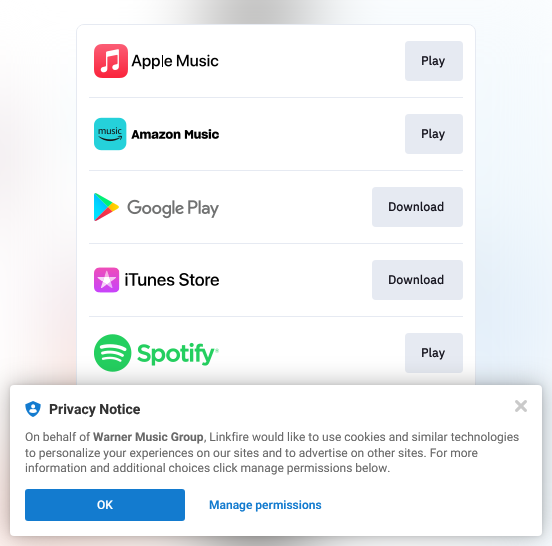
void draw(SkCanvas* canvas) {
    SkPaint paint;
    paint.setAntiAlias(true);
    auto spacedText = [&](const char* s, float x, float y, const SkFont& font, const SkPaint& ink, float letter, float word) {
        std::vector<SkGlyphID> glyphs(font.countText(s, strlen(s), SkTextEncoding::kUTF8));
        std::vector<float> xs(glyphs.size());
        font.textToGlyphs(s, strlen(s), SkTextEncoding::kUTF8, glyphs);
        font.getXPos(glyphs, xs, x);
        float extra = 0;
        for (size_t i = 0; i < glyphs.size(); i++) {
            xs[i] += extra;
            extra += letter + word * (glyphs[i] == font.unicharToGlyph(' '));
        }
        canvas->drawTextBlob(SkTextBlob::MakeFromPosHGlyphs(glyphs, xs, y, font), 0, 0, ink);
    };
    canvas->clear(0xFFFFFFFF);
    canvas->drawImageRect(SkImages::DeferredFromEncodedData(SkData::MakeFromFileName("img1.png")), SkRect::MakeXYWH(0, 0, 552, 546), SkSamplingOptions());
    paint.setStyle(SkPaint::kStroke_Style);
    paint.setStrokeWidth(1);
    paint.setColor(0xFFE6EAF2);
    canvas->drawRoundRect(SkRect::MakeXYWH(76.5f, 24.5f, 399, 438), 7.5f, 7.5f, paint);
    paint.setStyle(SkPaint::kFill_Style);
    paint.setColor(0xFFFFFFFF);
    canvas->drawRoundRect(SkRect::MakeXYWH(77, 25, 398, 437), 7, 7, paint);
    canvas->drawImageRect(SkImages::DeferredFromEncodedData(SkData::MakeFromFileName("img2.png")), SkRect::MakeXYWH(94, 44, 125, 34), SkSamplingOptions());
    paint.setColor(0xFFE6EAF2);
    canvas->drawRoundRect(SkRect::MakeXYWH(405, 41, 58, 40), 4, 4, paint);
    SkFont font1(fontMgr->matchFamilyStyle("IBM Plex Sans", SkFontStyle::Bold()), 12);
    font1.setSubpixel(true);
    paint.setColor(0xFF181721);
    spacedText("Play", 421, 65, font1, paint, 0.25f, 0);
    paint.setColor(0xFFE6EAF2);
    canvas->drawRect(SkRect::MakeXYWH(89, 97, 374, 1), paint);
    canvas->drawImageRect(SkImages::DeferredFromEncodedData(SkData::MakeFromFileName("img3.png")), SkRect::MakeXYWH(94, 117, 125, 34), SkSamplingOptions());
    canvas->drawRoundRect(SkRect::MakeXYWH(405, 114, 58, 40), 4, 4, paint);
    paint.setColor(0xFF181721);
    spacedText("Play", 421, 138, font1, paint, 0.25f, 0);
    paint.setColor(0xFFE6EAF2);
    canvas->drawRect(SkRect::MakeXYWH(89, 170, 374, 1), paint);
    canvas->drawImageRect(SkImages::DeferredFromEncodedData(SkData::MakeFromFileName("img4.png")), SkRect::MakeXYWH(94, 193, 125, 28), SkSamplingOptions());
    canvas->drawRoundRect(SkRect::MakeXYWH(372, 187, 91, 40), 4, 4, paint);
    paint.setColor(0xFF181721);
    spacedText("Download", 388, 211, font1, paint, 0.25f, 0);
    paint.setColor(0xFFE6EAF2);
    canvas->drawRect(SkRect::MakeXYWH(89, 243, 374, 1), paint);
    canvas->drawImageRect(SkImages::DeferredFromEncodedData(SkData::MakeFromFileName("img5.png")), SkRect::MakeXYWH(94, 267, 125, 26), SkSamplingOptions());
    canvas->drawRoundRect(SkRect::MakeXYWH(372, 260, 91, 40), 4, 4, paint);
    paint.setColor(0xFF181721);
    spacedText("Download", 388, 284, font1, paint, 0.25f, 0);
    paint.setColor(0xFFE6EAF2);
    canvas->drawRect(SkRect::MakeXYWH(89, 316, 374, 1), paint);
    canvas->drawImageRect(SkImages::DeferredFromEncodedData(SkData::MakeFromFileName("img6.png")), SkRect::MakeXYWH(94, 334, 125, 38), SkSamplingOptions());
    canvas->drawRoundRect(SkRect::MakeXYWH(405, 333, 58, 40), 4, 4, paint);
    paint.setColor(0xFF181721);
    spacedText("Play", 421, 357, font1, paint, 0.25f, 0);
    paint.setColor(0x1F000000);
    paint.setMaskFilter(SkMaskFilter::MakeBlur(kNormal_SkBlurStyle, 2));
    canvas->drawRoundRect(SkRect::MakeXYWH(10, 385, 532, 151), 4, 4, paint);
    paint.setMaskFilter(nullptr);
    paint.setColor(0x4D000000);
    paint.setMaskFilter(SkMaskFilter::MakeBlur(kNormal_SkBlurStyle, 12));
    canvas->drawRoundRect(SkRect::MakeXYWH(10, 385, 532, 151), 4, 4, paint);
    paint.setMaskFilter(nullptr);
    paint.setColor(0xFFFFFFFF);
    canvas->drawRoundRect(SkRect::MakeXYWH(10, 385, 532, 151), 4, 4, paint);
    canvas->drawImageRect(SkImages::DeferredFromEncodedData(SkData::MakeFromFileName("img7.png")), SkRect::MakeXYWH(25, 401, 16, 16), SkSamplingOptions());
    SkFont font2(fontMgr->matchFamilyStyle("Roboto", SkFontStyle::Bold()), 14);
    font2.setSubpixel(true);
    paint.setColor(0xFF323232);
    canvas->drawString("Privacy Notice", 49, 414, font2, paint);
    SkFont font3(fontMgr->matchFamilyStyle("Roboto", SkFontStyle::Normal()), 12);
    font3.setSubpixel(true);
    paint.setColor(0xFF686868);
    canvas->drawString("On behalf of", 25, 441, font3, paint);
    SkFont font4(fontMgr->matchFamilyStyle("Roboto", SkFontStyle::Bold()), 12);
    font4.setSubpixel(true);
    canvas->drawString("Warner Music Group", 93, 441, font4, paint);
    canvas->drawString(", Linkfire would like to use cookies and similar technologies", 204, 441, font3, paint);
    canvas->drawString("to personalize your experiences on our sites and to advertise on other sites. For more", 25, 457, font3, paint);
    canvas->drawString("information and additional choices click manage permissions below.", 25, 472, font3, paint);
    paint.setColor(0xFF137BCF);
    canvas->drawRoundRect(SkRect::MakeXYWH(25, 489, 160, 32), 3, 3, paint);
    SkFont font5(fontMgr->matchFamilyStyle("Roboto", SkFontStyle(500, SkFontStyle::kNormal_Width, SkFontStyle::kUpright_Slant)), 12);
    font5.setSubpixel(true);
    paint.setColor(0xFFFFFFFF);
    canvas->drawString("OK", 97, 509, font5, paint);
    SkFont font6(fontMgr->matchFamilyStyle("Roboto", SkFontStyle(600, SkFontStyle::kNormal_Width, SkFontStyle::kUpright_Slant)), 12);
    font6.setSubpixel(true);
    paint.setColor(0xFF137BCF);
    canvas->drawString("Manage permissions", 209, 509, font6, paint);
    canvas->drawImageRect(SkImages::DeferredFromEncodedData(SkData::MakeFromFileName("img8.png")), SkRect::MakeXYWH(515, 400, 12, 12), SkSamplingOptions());
}
